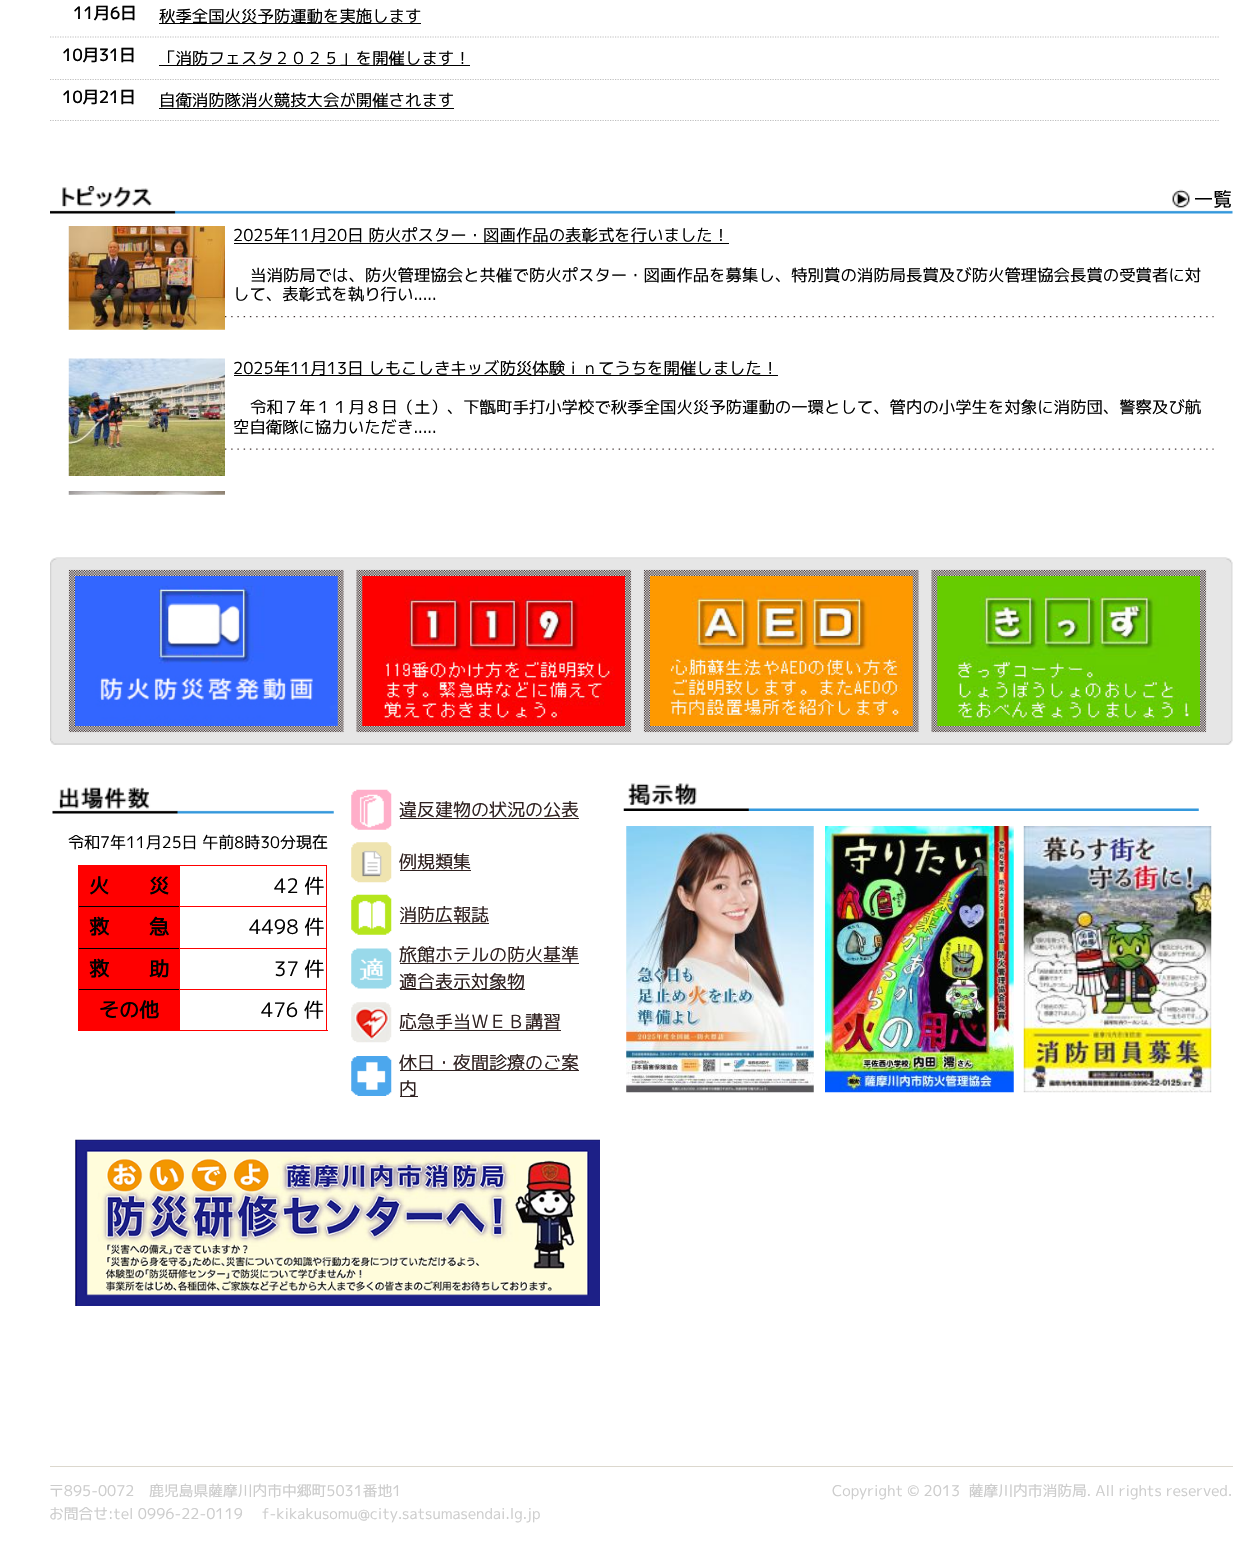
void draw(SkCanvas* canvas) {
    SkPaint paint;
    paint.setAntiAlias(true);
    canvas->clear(0xFFFFFFFF);
    SkFont font1(fontMgr->matchFamilyStyle("M PLUS 1p", SkFontStyle::Bold()), 16.4f);
    font1.setSubpixel(true);
    paint.setColor(0xFF000000);
    canvas->drawString("11月6日", 73, 19, font1, paint);
    paint.setStyle(SkPaint::kStroke_Style);
    paint.setStrokeWidth(1.2f);
    paint.setColor(0xFFC0C0C0);
    paint.setPathEffect(SkDashPathEffect::Make({{1.25f, 1.25f}}, 0));
    canvas->drawPath(SkPathBuilder().moveTo(50, 37).lineTo(1220, 37).detach(), paint);
    paint.setPathEffect(nullptr);
    paint.setStyle(SkPaint::kFill_Style);
    paint.setColor(0xFF000000);
    canvas->drawRect(SkRect::MakeXYWH(159, 23, 262, 1), paint);
    SkFont font2(fontMgr->matchFamilyStyle("M PLUS 1p", SkFontStyle::Normal()), 16.4f);
    font2.setSubpixel(true);
    canvas->drawString("秋季全国火災予防運動を実施します", 159, 22, font2, paint);
    canvas->drawString("10月31日", 62, 61, font1, paint);
    paint.setStyle(SkPaint::kStroke_Style);
    paint.setColor(0xFFC0C0C0);
    paint.setPathEffect(SkDashPathEffect::Make({{1.25f, 1.25f}}, 0));
    canvas->drawPath(SkPathBuilder().moveTo(50, 79.5f).lineTo(1220, 79.5f).detach(), paint);
    paint.setPathEffect(nullptr);
    paint.setStyle(SkPaint::kFill_Style);
    paint.setColor(0xFF000000);
    canvas->drawRect(SkRect::MakeXYWH(159, 65, 311, 1), paint);
    canvas->drawString("「消防フェスタ２０２５」を開催します！", 159, 64, font2, paint);
    canvas->drawString("10月21日", 62, 103, font1, paint);
    paint.setStyle(SkPaint::kStroke_Style);
    paint.setColor(0xFFC0C0C0);
    paint.setPathEffect(SkDashPathEffect::Make({{1.25f, 1.25f}}, 0));
    canvas->drawPath(SkPathBuilder().moveTo(50, 120.5f).lineTo(1220, 120.5f).detach(), paint);
    paint.setPathEffect(nullptr);
    paint.setStyle(SkPaint::kFill_Style);
    paint.setColor(0xFF000000);
    canvas->drawString("自衛消防隊消火競技大会が開催されます", 159, 106, font2, paint);
    canvas->drawRect(SkRect::MakeXYWH(159, 108, 295, 1), paint);
    canvas->drawImageRect(SkImages::DeferredFromEncodedData(SkData::MakeFromFileName("img1.png")), SkRect::MakeXYWH(50, 186, 1183, 28), SkSamplingOptions());
    canvas->drawImageRect(SkImages::DeferredFromEncodedData(SkData::MakeFromFileName("img2.png")), SkRect::MakeXYWH(1172, 189, 18, 19), SkSamplingOptions());
    SkFont font3(fontMgr->matchFamilyStyle("M PLUS 1p", SkFontStyle::Normal()), 19);
    font3.setSubpixel(true);
    canvas->drawString("一覧", 1194, 206, font3, paint);
    canvas->drawImageRect(SkImages::DeferredFromEncodedData(SkData::MakeFromFileName("img3.png")), SkRect::MakeXYWH(68, 316, 1146, 2), SkSamplingOptions());
    canvas->drawImageRect(SkImages::DeferredFromEncodedData(SkData::MakeFromFileName("img4.png")), SkRect::MakeXYWH(68, 226, 157, 104), SkSamplingOptions());
    canvas->drawString("2025年11月20日 防火ポスター・図画作品の表彰式を行いました！", 233, 241, font2, paint);
    canvas->drawRect(SkRect::MakeXYWH(234, 243, 495, 1), paint);
    canvas->drawString("当消防局では、防火管理協会と共催で防火ポスター・図画作品を募集し、特別賞の消防局長賞及び防火管理協会長賞の受賞者に対", 250, 281, font2, paint);
    canvas->drawString("して、表彰式を執り行い.....", 233, 300, font2, paint);
    canvas->drawImageRect(SkImages::DeferredFromEncodedData(SkData::MakeFromFileName("img5.png")), SkRect::MakeXYWH(68, 448, 1146, 2), SkSamplingOptions());
    canvas->drawImageRect(SkImages::DeferredFromEncodedData(SkData::MakeFromFileName("img6.png")), SkRect::MakeXYWH(68, 358, 157, 118), SkSamplingOptions());
    canvas->drawRect(SkRect::MakeXYWH(234, 375, 544, 1), paint);
    canvas->drawString("2025年11月13日 しもこしきキッズ防災体験ｉｎてうちを開催しました！", 233, 374, font2, paint);
    canvas->drawString("令和７年１１月８日（土）、下甑町手打小学校で秋季全国火災予防運動の一環として、管内の小学生を対象に消防団、警察及び航", 250, 413, font2, paint);
    canvas->drawString("空自衛隊に協力いただき.....", 233, 433, font2, paint);
    canvas->drawImageRect(SkImages::DeferredFromEncodedData(SkData::MakeFromFileName("img7.png")), SkRect::MakeXYWH(68, 491, 157, 4), SkSamplingOptions());
    canvas->drawImageRect(SkImages::DeferredFromEncodedData(SkData::MakeFromFileName("img8.png")), SkRect::MakeXYWH(50, 557, 1183, 188), SkSamplingOptions());
    canvas->drawImageRect(SkImages::DeferredFromEncodedData(SkData::MakeFromFileName("img9.png")), SkRect::MakeXYWH(68, 569, 276, 164), SkSamplingOptions());
    canvas->drawImageRect(SkImages::DeferredFromEncodedData(SkData::MakeFromFileName("img10.png")), SkRect::MakeXYWH(337, 576, 1, 150), SkSamplingOptions());
    canvas->drawImageRect(SkImages::DeferredFromEncodedData(SkData::MakeFromFileName("img11.png")), SkRect::MakeXYWH(356, 569, 276, 164), SkSamplingOptions());
    paint.setColor(0x80FD0000);
    canvas->drawRect(SkRect::MakeXYWH(362, 576, 1, 150), paint);
    canvas->drawImageRect(SkImages::DeferredFromEncodedData(SkData::MakeFromFileName("img12.png")), SkRect::MakeXYWH(643, 569, 276, 164), SkSamplingOptions());
    paint.setColor(0x80FD9900);
    canvas->drawRect(SkRect::MakeXYWH(912, 576, 1, 150), paint);
    canvas->drawImageRect(SkImages::DeferredFromEncodedData(SkData::MakeFromFileName("img13.png")), SkRect::MakeXYWH(931, 569, 276, 164), SkSamplingOptions());
    paint.setColor(0x8066CB00);
    canvas->drawRect(SkRect::MakeXYWH(937, 576, 1, 150), paint);
    canvas->drawImageRect(SkImages::DeferredFromEncodedData(SkData::MakeFromFileName("img14.png")), SkRect::MakeXYWH(52, 787, 282, 27), SkSamplingOptions());
    SkFont font4(fontMgr->matchFamilyStyle("M PLUS 1p", SkFontStyle::Normal()), 16);
    font4.setSubpixel(true);
    paint.setColor(0xFF000000);
    canvas->drawString("令和7年11月25日 午前8時30分現在", 68, 848, font4, paint);
    paint.setColor(0xFFFF0000);
    canvas->drawRect(SkRect::MakeXYWH(326, 865, 1, 166), paint);
    canvas->drawRect(SkRect::MakeXYWH(78, 1030, 250, 1), paint);
    canvas->drawRect(SkRect::MakeXYWH(78, 865, 101, 41), paint);
    SkFont font5(fontMgr->matchFamilyStyle("M PLUS 1p", SkFontStyle::Bold()), 20);
    font5.setSubpixel(true);
    paint.setColor(0xFF000000);
    canvas->drawString("火　　災", 89, 893, font5, paint);
    paint.setColor(0xFFFF0000);
    canvas->drawRect(SkRect::MakeXYWH(179, 865, 147, 1), paint);
    canvas->drawRect(SkRect::MakeXYWH(179, 865, 1, 41), paint);
    SkFont font6(fontMgr->matchFamilyStyle("M PLUS 1p", SkFontStyle::Normal()), 20);
    font6.setSubpixel(true);
    paint.setColor(0xFF000000);
    canvas->drawString("42 件", 274, 893, font6, paint);
    paint.setColor(0xFFFF0000);
    canvas->drawRect(SkRect::MakeXYWH(79, 907, 100, 41), paint);
    paint.setColor(0xFF000000);
    canvas->drawRect(SkRect::MakeXYWH(78, 906, 101, 1), paint);
    paint.setColor(0xFFFF0000);
    canvas->drawRect(SkRect::MakeXYWH(78, 906, 1, 42), paint);
    paint.setColor(0xFF000000);
    canvas->drawString("救　　急", 89, 934, font5, paint);
    paint.setColor(0xFFFF0000);
    canvas->drawRect(SkRect::MakeXYWH(179, 906, 147, 1), paint);
    canvas->drawRect(SkRect::MakeXYWH(179, 906, 1, 42), paint);
    paint.setColor(0xFF000000);
    canvas->drawString("4498 件", 249, 934, font6, paint);
    paint.setColor(0xFFFF0000);
    canvas->drawRect(SkRect::MakeXYWH(79, 949, 100, 40), paint);
    paint.setColor(0xFF000000);
    canvas->drawRect(SkRect::MakeXYWH(78, 948, 101, 1), paint);
    paint.setColor(0xFFFF0000);
    canvas->drawRect(SkRect::MakeXYWH(78, 948, 1, 41), paint);
    paint.setColor(0xFF000000);
    canvas->drawString("救　　助", 89, 976, font5, paint);
    paint.setColor(0xFFFF0000);
    canvas->drawRect(SkRect::MakeXYWH(179, 948, 147, 1), paint);
    canvas->drawRect(SkRect::MakeXYWH(179, 948, 1, 41), paint);
    paint.setColor(0xFF000000);
    canvas->drawString("37 件", 274, 976, font6, paint);
    paint.setColor(0xFFFF0000);
    canvas->drawRect(SkRect::MakeXYWH(79, 990, 100, 40), paint);
    paint.setColor(0xFF000000);
    canvas->drawRect(SkRect::MakeXYWH(78, 989, 101, 1), paint);
    paint.setColor(0xFFFF0000);
    canvas->drawRect(SkRect::MakeXYWH(78, 989, 1, 41), paint);
    paint.setColor(0xFF000000);
    canvas->drawString("その他", 99, 1017, font5, paint);
    paint.setColor(0xFFFF0000);
    canvas->drawRect(SkRect::MakeXYWH(179, 989, 147, 1), paint);
    canvas->drawRect(SkRect::MakeXYWH(179, 989, 1, 41), paint);
    paint.setColor(0xFF000000);
    canvas->drawString("476 件", 261, 1017, font6, paint);
    canvas->drawImageRect(SkImages::DeferredFromEncodedData(SkData::MakeFromFileName("img15.png")), SkRect::MakeXYWH(351, 789, 41, 41), SkSamplingOptions());
    SkFont font7(fontMgr->matchFamilyStyle("M PLUS 1p", SkFontStyle::Normal()), 18);
    font7.setSubpixel(true);
    paint.setColor(0xFF2F2120);
    canvas->drawString("違反建物の状況の公表", 399, 816, font7, paint);
    canvas->drawRect(SkRect::MakeXYWH(400, 818, 179, 1), paint);
    canvas->drawImageRect(SkImages::DeferredFromEncodedData(SkData::MakeFromFileName("img16.png")), SkRect::MakeXYWH(351, 842, 41, 41), SkSamplingOptions());
    canvas->drawString("例規類集", 399, 868, font7, paint);
    canvas->drawRect(SkRect::MakeXYWH(400, 870, 71, 1), paint);
    canvas->drawImageRect(SkImages::DeferredFromEncodedData(SkData::MakeFromFileName("img17.png")), SkRect::MakeXYWH(351, 894, 41, 41), SkSamplingOptions());
    canvas->drawString("消防広報誌", 399, 921, font7, paint);
    canvas->drawRect(SkRect::MakeXYWH(400, 923, 89, 1), paint);
    canvas->drawImageRect(SkImages::DeferredFromEncodedData(SkData::MakeFromFileName("img18.png")), SkRect::MakeXYWH(351, 948, 41, 41), SkSamplingOptions());
    canvas->drawString("旅館ホテルの防火基準", 399, 961, font7, paint);
    canvas->drawRect(SkRect::MakeXYWH(400, 963, 179, 1), paint);
    canvas->drawRect(SkRect::MakeXYWH(400, 989, 125, 1), paint);
    canvas->drawString("適合表示対象物", 399, 988, font7, paint);
    canvas->drawImageRect(SkImages::DeferredFromEncodedData(SkData::MakeFromFileName("img19.png")), SkRect::MakeXYWH(351, 1002, 41, 41), SkSamplingOptions());
    canvas->drawString("応急手当ＷＥＢ講習", 399, 1028, font7, paint);
    canvas->drawRect(SkRect::MakeXYWH(400, 1030, 161, 1), paint);
    canvas->drawImageRect(SkImages::DeferredFromEncodedData(SkData::MakeFromFileName("img20.png")), SkRect::MakeXYWH(351, 1056, 41, 40), SkSamplingOptions());
    canvas->drawRect(SkRect::MakeXYWH(400, 1070, 179, 1), paint);
    canvas->drawString("休日・夜間診療のご案", 399, 1069, font7, paint);
    canvas->drawRect(SkRect::MakeXYWH(400, 1096, 18, 1), paint);
    canvas->drawString("内", 399, 1095, font7, paint);
    canvas->drawImageRect(SkImages::DeferredFromEncodedData(SkData::MakeFromFileName("img21.png")), SkRect::MakeXYWH(75, 1139, 525, 167), SkSamplingOptions());
    canvas->drawImageRect(SkImages::DeferredFromEncodedData(SkData::MakeFromFileName("img22.png")), SkRect::MakeXYWH(623, 783, 576, 28), SkSamplingOptions());
    canvas->drawImageRect(SkImages::DeferredFromEncodedData(SkData::MakeFromFileName("img23.png")), SkRect::MakeXYWH(626, 826, 188, 267), SkSamplingOptions());
    canvas->drawImageRect(SkImages::DeferredFromEncodedData(SkData::MakeFromFileName("img24.png")), SkRect::MakeXYWH(825, 826, 189, 267), SkSamplingOptions());
    canvas->drawImageRect(SkImages::DeferredFromEncodedData(SkData::MakeFromFileName("img25.png")), SkRect::MakeXYWH(1023, 826, 189, 267), SkSamplingOptions());
    paint.setColor(0xFFDCD8CE);
    canvas->drawRect(SkRect::MakeXYWH(50, 1466, 1183, 1), paint);
    SkFont font8(fontMgr->matchFamilyStyle("M PLUS 1p", SkFontStyle::Normal()), 14.75f);
    font8.setSubpixel(true);
    paint.setColor(0xFFCCCCCC);
    canvas->drawString("〒895-0072　鹿児島県薩摩川内市中郷町5031番地1", 49, 1496, font8, paint);
    canvas->drawString("お問合せ:tel 0996-22-0119　 f-kikakusomu@city.satsumasendai.lg.jp", 49, 1519, font8, paint);
    canvas->drawString("Copyright © 2013  薩摩川内市消防局. All rights reserved.", 832, 1496, font8, paint);
}
